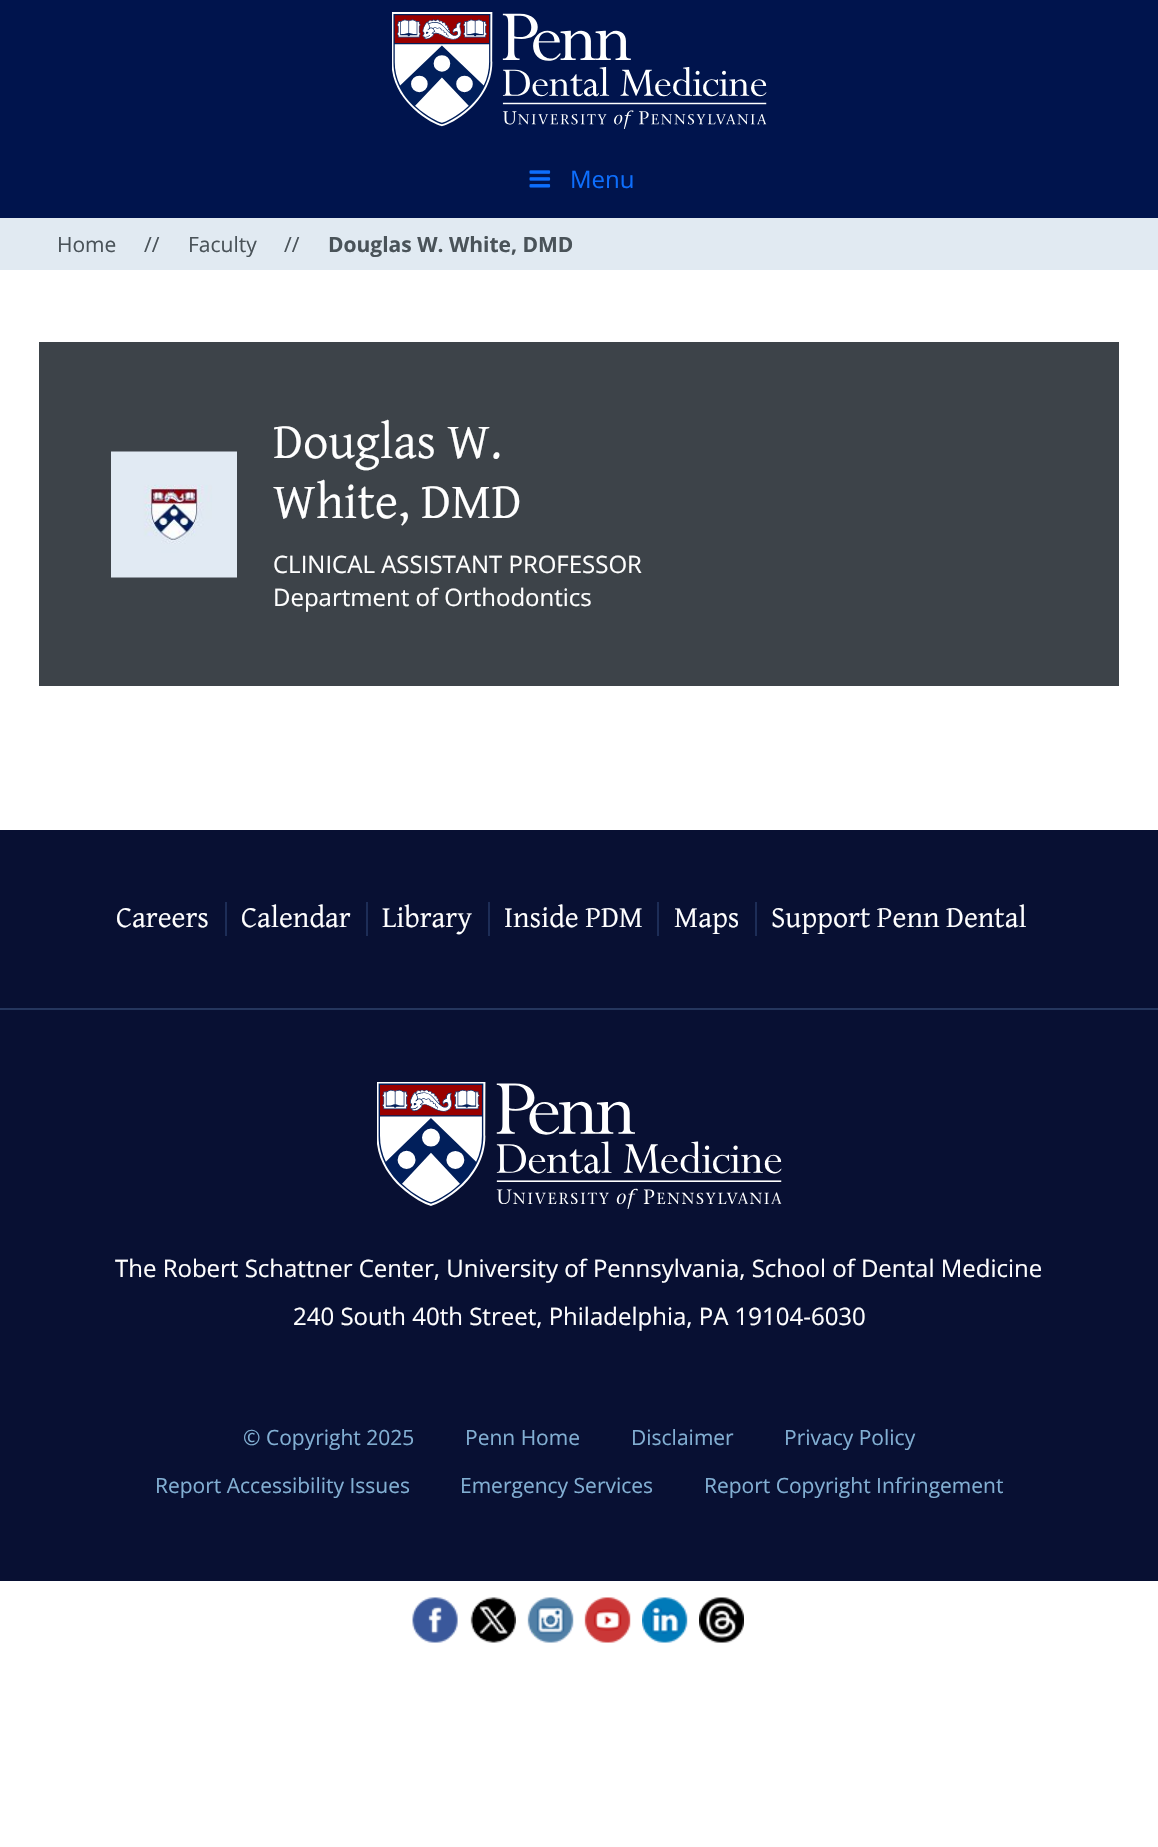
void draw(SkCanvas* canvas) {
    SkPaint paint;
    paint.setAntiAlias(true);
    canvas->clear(0xFFFFFFFF);
    paint.setColor(0xFF00144D);
    canvas->drawRect(SkRect::MakeXYWH(0, 0, 1158, 218), paint);
    canvas->drawImageRect(SkImages::DeferredFromEncodedData(SkData::MakeFromFileName("img1.png")), SkRect::MakeXYWH(392, 12, 375, 117), SkSamplingOptions());
    canvas->drawImageRect(SkImages::DeferredFromEncodedData(SkData::MakeFromFileName("img2.png")), SkRect::MakeXYWH(529, 170, 22, 18), SkSamplingOptions());
    SkFont font1(fontMgr->matchFamilyStyle("Open Sans", SkFontStyle::Normal()), 24);
    font1.setSubpixel(true);
    paint.setColor(0xFF0D6EFD);
    canvas->drawString("Menu", 570, 188, font1, paint);
    paint.setColor(0xFFE1EAF2);
    canvas->drawRect(SkRect::MakeXYWH(0, 218, 1158, 52), paint);
    SkFont font2(fontMgr->matchFamilyStyle("Open Sans", SkFontStyle::Normal()), 21);
    font2.setSubpixel(true);
    paint.setColor(0xFF4A5359);
    canvas->drawString("Home", 57, 252, font2, paint);
    canvas->drawString("//", 144, 252, font2, paint);
    canvas->drawString("Faculty", 188, 252, font2, paint);
    canvas->drawString("//", 284, 252, font2, paint);
    SkFont font3(fontMgr->matchFamilyStyle("Open Sans", SkFontStyle::Bold()), 21);
    font3.setSubpixel(true);
    canvas->drawString("Douglas W. White, DMD", 328, 252, font3, paint);
    paint.setColor(0xFF3D4349);
    canvas->drawRect(SkRect::MakeXYWH(39, 342, 1080, 344), paint);
    canvas->drawImageRect(SkImages::DeferredFromEncodedData(SkData::MakeFromFileName("img3.png")), SkRect::MakeXYWH(111, 451, 126, 127), SkSamplingOptions());
    SkFont font4(fontMgr->matchFamilyStyle("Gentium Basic", SkFontStyle::Normal()), 50.5f);
    font4.setSubpixel(true);
    paint.setColor(0xFFFFFFFF);
    canvas->drawString("Douglas W.", 273, 458, font4, paint);
    canvas->drawString("White, DMD", 273, 518, font4, paint);
    canvas->drawString("CLINICAL ASSISTANT PROFESSOR", 273, 573, font1, paint);
    canvas->drawString("Department of Orthodontics", 273, 606, font1, paint);
    paint.setColor(0xFF081033);
    canvas->drawRect(SkRect::MakeXYWH(0, 830, 1158, 751), paint);
    paint.setColor(0xFF25365E);
    canvas->drawRect(SkRect::MakeXYWH(0, 1008, 1158, 2), paint);
    paint.setColor(0xFF1D2D57);
    canvas->drawRect(SkRect::MakeXYWH(225, 902, 2, 34), paint);
    SkFont font5(fontMgr->matchFamilyStyle("Gentium Basic", SkFontStyle::Normal()), 30);
    font5.setSubpixel(true);
    paint.setColor(0xFFFFFFFF);
    canvas->drawString("Careers", 116, 927, font5, paint);
    paint.setColor(0xFF1D2D57);
    canvas->drawRect(SkRect::MakeXYWH(366, 902, 2, 34), paint);
    paint.setColor(0xFFFFFFFF);
    canvas->drawString("Calendar", 241, 927, font5, paint);
    paint.setColor(0xFF1D2D57);
    canvas->drawRect(SkRect::MakeXYWH(488, 902, 2, 34), paint);
    paint.setColor(0xFFFFFFFF);
    canvas->drawString("Library", 382, 927, font5, paint);
    paint.setColor(0xFF1D2D57);
    canvas->drawRect(SkRect::MakeXYWH(657, 902, 2, 34), paint);
    paint.setColor(0xFFFFFFFF);
    canvas->drawString("Inside PDM", 504, 927, font5, paint);
    paint.setColor(0xFF1D2D57);
    canvas->drawRect(SkRect::MakeXYWH(755, 902, 2, 34), paint);
    paint.setColor(0xFFFFFFFF);
    canvas->drawString("Maps", 674, 927, font5, paint);
    canvas->drawString("Support Penn Dental", 771, 927, font5, paint);
    canvas->drawImageRect(SkImages::DeferredFromEncodedData(SkData::MakeFromFileName("img4.png")), SkRect::MakeXYWH(377, 1082, 405, 127), SkSamplingOptions());
    canvas->drawString("The Robert Schattner Center, University of Pennsylvania, School of Dental Medicine", 115, 1277, font1, paint);
    canvas->drawString("240 South 40th Street, Philadelphia, PA 19104-6030", 293, 1325, font1, paint);
    paint.setColor(0xFF82AFD3);
    canvas->drawString("© Copyright 2025", 243, 1445, font2, paint);
    canvas->drawString("Penn Home", 465, 1445, font2, paint);
    canvas->drawString("Disclaimer", 631, 1445, font2, paint);
    canvas->drawString("Privacy Policy", 784, 1445, font2, paint);
    canvas->drawString("Report Accessibility Issues", 155, 1493, font2, paint);
    canvas->drawString("Emergency Services", 460, 1493, font2, paint);
    canvas->drawString("Report Copyright Infringement", 704, 1493, font2, paint);
    canvas->drawImageRect(SkImages::DeferredFromEncodedData(SkData::MakeFromFileName("img5.png")), SkRect::MakeXYWH(412, 1597, 46, 46), SkSamplingOptions());
    canvas->drawImageRect(SkImages::DeferredFromEncodedData(SkData::MakeFromFileName("img6.png")), SkRect::MakeXYWH(470, 1597, 46, 46), SkSamplingOptions());
    canvas->drawImageRect(SkImages::DeferredFromEncodedData(SkData::MakeFromFileName("img7.png")), SkRect::MakeXYWH(527, 1597, 47, 46), SkSamplingOptions());
    canvas->drawImageRect(SkImages::DeferredFromEncodedData(SkData::MakeFromFileName("img8.png")), SkRect::MakeXYWH(584, 1597, 47, 46), SkSamplingOptions());
    canvas->drawImageRect(SkImages::DeferredFromEncodedData(SkData::MakeFromFileName("img9.png")), SkRect::MakeXYWH(642, 1597, 46, 46), SkSamplingOptions());
    canvas->drawImageRect(SkImages::DeferredFromEncodedData(SkData::MakeFromFileName("img10.png")), SkRect::MakeXYWH(699, 1597, 45, 46), SkSamplingOptions());
}
